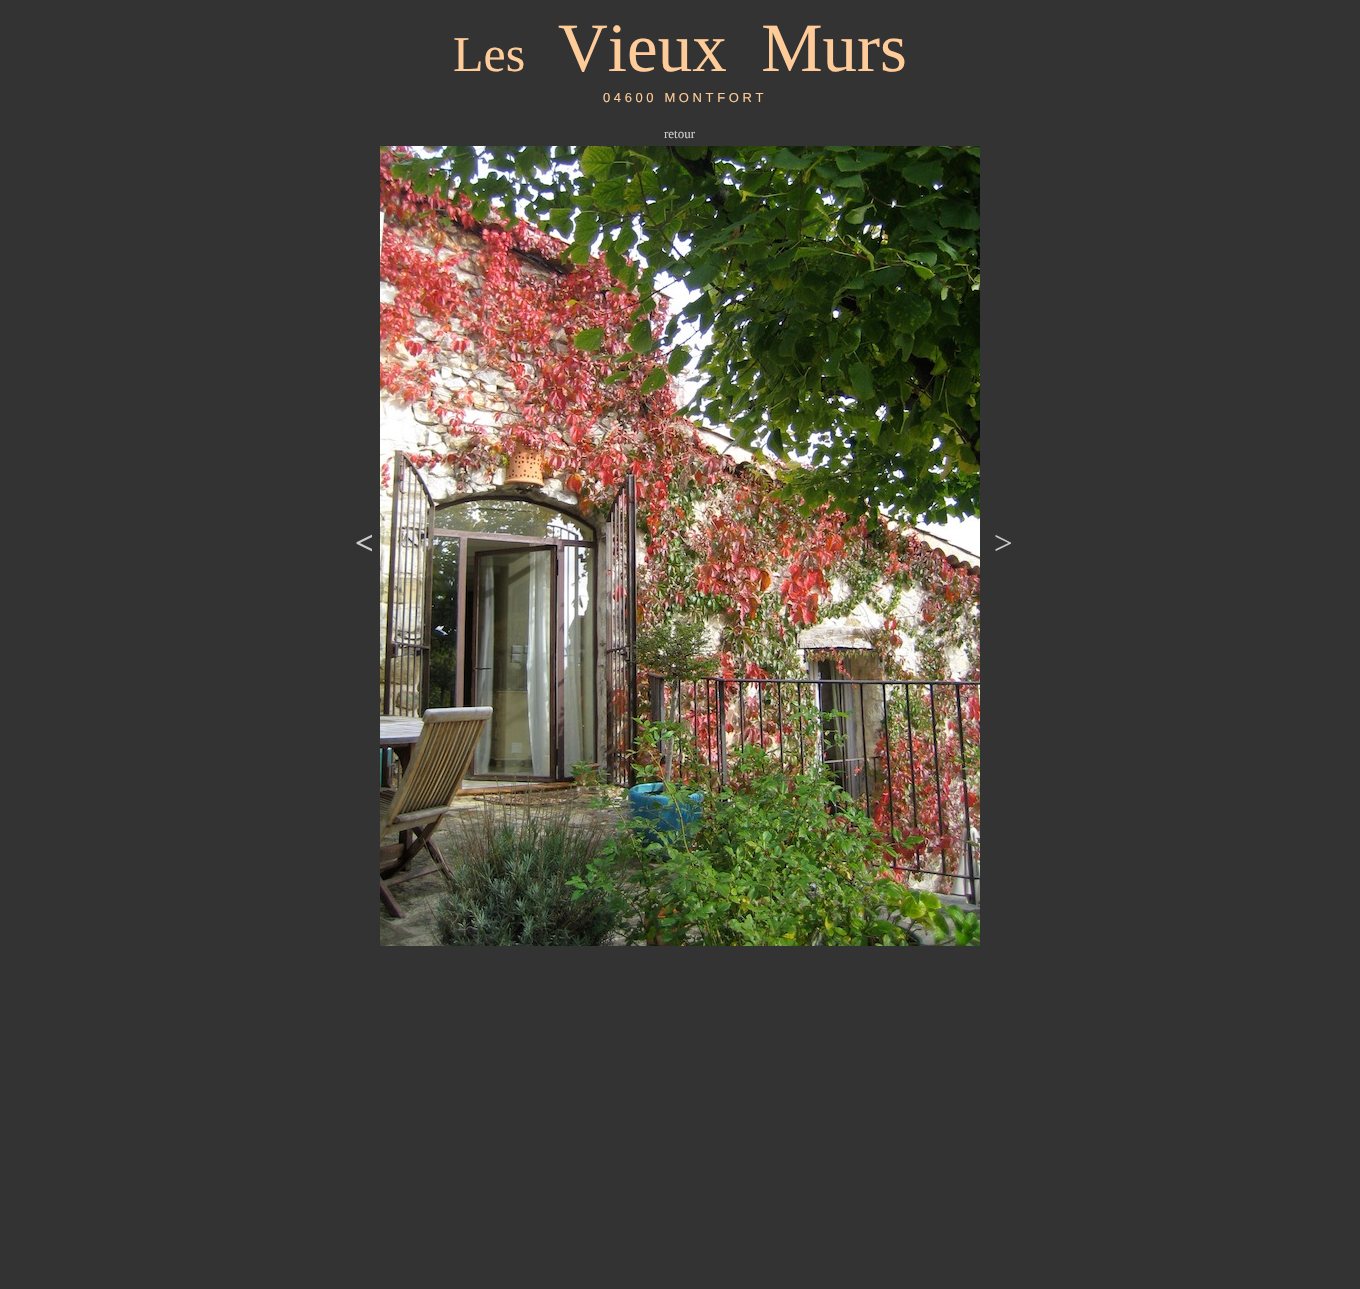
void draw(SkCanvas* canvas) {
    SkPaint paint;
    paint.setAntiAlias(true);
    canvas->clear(0xFF333333);
    SkFont font1(fontMgr->matchFamilyStyle("Liberation Serif", SkFontStyle::Normal()), 50);
    font1.setSubpixel(true);
    paint.setColor(0xFFFFCC99);
    canvas->drawString("Les", 453, 71, font1, paint);
    SkFont font2(fontMgr->matchFamilyStyle("Liberation Serif", SkFontStyle::Normal()), 69);
    font2.setSubpixel(true);
    canvas->drawString("Vieux  Murs", 558, 71, font2, paint);
    SkFont font3(fontMgr->matchFamilyStyle("Liberation Sans", SkFontStyle::Normal()), 13);
    font3.setSubpixel(true);
    canvas->drawString("0 4 6 0 0   M O N T F O R T", 603, 102, font3, paint);
    SkFont font4(fontMgr->matchFamilyStyle("Liberation Serif", SkFontStyle::Normal()), 13);
    font4.setSubpixel(true);
    paint.setColor(0xFFCCCCCC);
    canvas->drawString("retour", 664, 138, font4, paint);
    SkFont font5(fontMgr->matchFamilyStyle("Liberation Serif", SkFontStyle::Bold()), 33);
    font5.setSubpixel(true);
    canvas->drawString("<", 355, 554, font5, paint);
    canvas->drawImageRect(SkImages::DeferredFromEncodedData(SkData::MakeFromFileName("img1.png")), SkRect::MakeXYWH(380, 146, 600, 800), SkSamplingOptions());
    SkFont font6(fontMgr->matchFamilyStyle("Liberation Serif", SkFontStyle::Normal()), 33);
    font6.setSubpixel(true);
    canvas->drawString(">", 994, 554, font6, paint);
}
